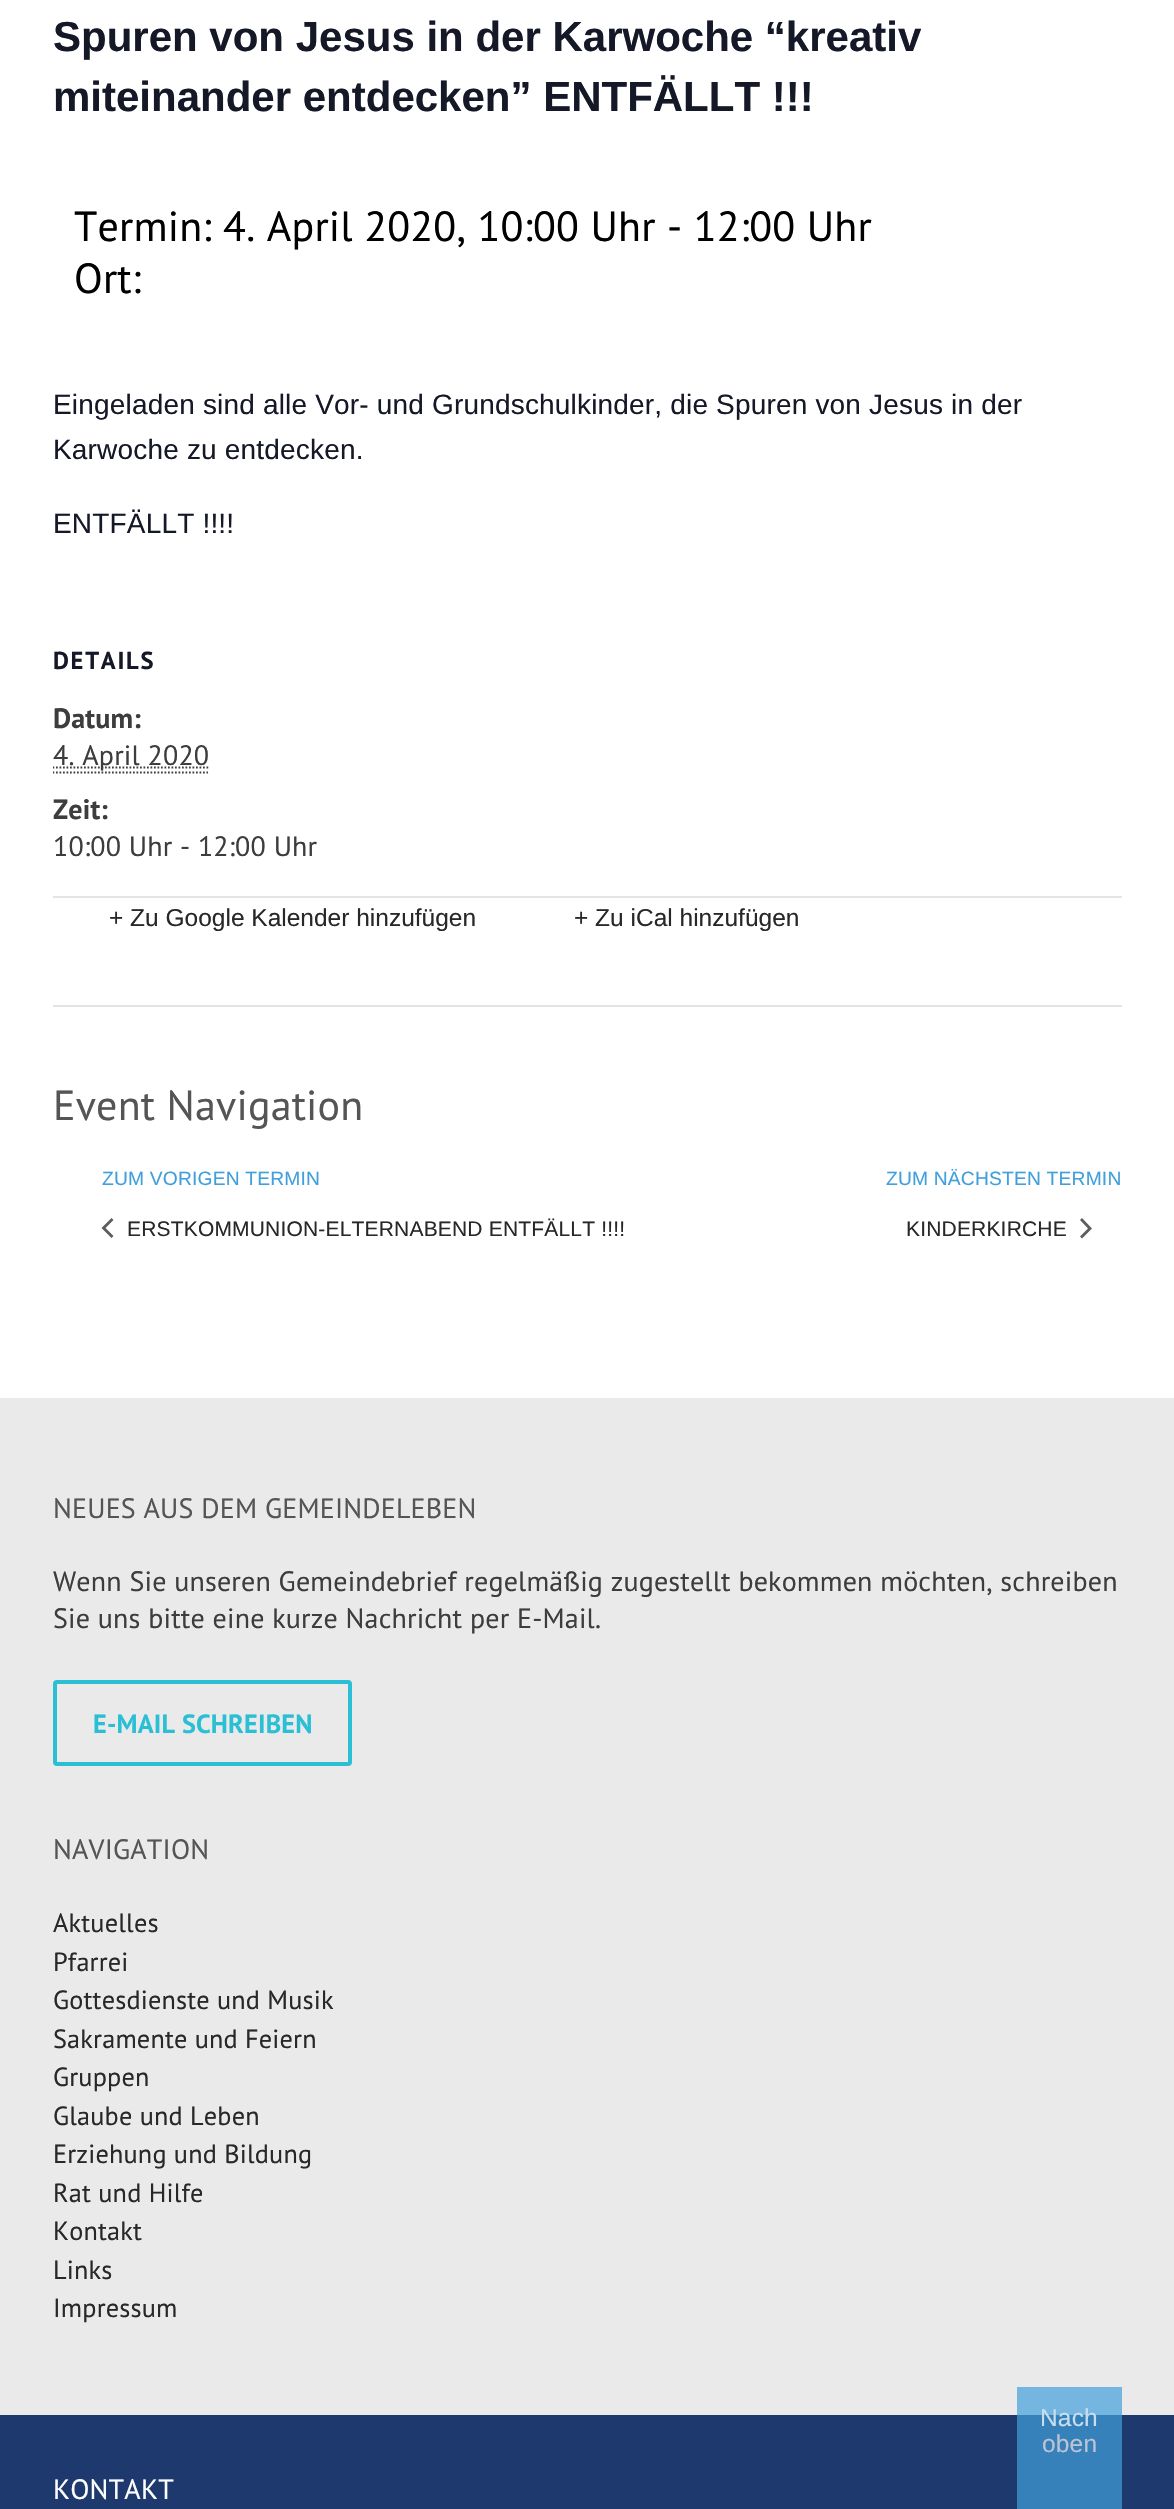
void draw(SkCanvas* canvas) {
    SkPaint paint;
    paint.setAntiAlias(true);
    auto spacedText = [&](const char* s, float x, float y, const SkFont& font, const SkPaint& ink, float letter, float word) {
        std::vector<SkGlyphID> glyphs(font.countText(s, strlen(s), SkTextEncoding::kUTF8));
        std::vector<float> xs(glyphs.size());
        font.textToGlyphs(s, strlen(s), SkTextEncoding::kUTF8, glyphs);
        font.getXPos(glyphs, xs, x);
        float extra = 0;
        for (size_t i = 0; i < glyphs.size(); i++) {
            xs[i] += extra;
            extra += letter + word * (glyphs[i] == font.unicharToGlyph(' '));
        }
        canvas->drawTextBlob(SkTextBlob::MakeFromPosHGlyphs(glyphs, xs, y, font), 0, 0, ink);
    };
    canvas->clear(0xFFFFFFFF);
    SkFont font1(fontMgr->matchFamilyStyle("Liberation Sans", SkFontStyle::Bold()), 42);
    font1.setSubpixel(true);
    paint.setColor(0xFF141827);
    canvas->drawString("Spuren von Jesus in der Karwoche “kreativ", 53, 51, font1, paint);
    canvas->drawString("miteinander entdecken” ENTFÄLLT !!!", 53, 111, font1, paint);
    SkFont font2(fontMgr->matchFamilyStyle("PT Sans", SkFontStyle::Normal()), 42);
    font2.setSubpixel(true);
    paint.setColor(0xFF000000);
    spacedText("Termin: 4. April 2020, 10:00 Uhr - 12:00 Uhr", 74, 241, font2, paint, 0.18f, 0);
    spacedText("Ort:", 74, 293, font2, paint, 0.18f, 0);
    SkFont font3(fontMgr->matchFamilyStyle("Liberation Sans", SkFontStyle::Normal()), 28);
    font3.setSubpixel(true);
    paint.setColor(0xFF141827);
    spacedText("Eingeladen sind alle Vor- und Grundschulkinder, die Spuren von Jesus in der", 53, 414, font3, paint, 0.18f, 0);
    spacedText("Karwoche zu entdecken.", 53, 459, font3, paint, 0.18f, 0);
    spacedText("ENTFÄLLT !!!!", 53, 533, font3, paint, 0.18f, 0);
    SkFont font4(fontMgr->matchFamilyStyle("PT Sans", SkFontStyle::Bold()), 24.5f);
    font4.setSubpixel(true);
    spacedText("DETAILS", 53, 669, font4, paint, 1.75f, 0);
    SkFont font5(fontMgr->matchFamilyStyle("PT Sans", SkFontStyle::Bold()), 28);
    font5.setSubpixel(true);
    paint.setColor(0xFF3D3D3D);
    spacedText("Datum:", 53, 728, font5, paint, 0.18f, 0);
    canvas->save();
    canvas->clipRect(SkRect::MakeXYWH(53, 382, 1069, 623));
    paint.setStyle(SkPaint::kStroke_Style);
    paint.setStrokeWidth(1.8f);
    paint.setPathEffect(SkDashPathEffect::Make({{1.75f, 1.75f}}, 0));
    canvas->drawPath(SkPathBuilder().moveTo(52.5f, 767.5f).lineTo(209, 767.5f).detach(), paint);
    paint.setPathEffect(nullptr);
    canvas->restore();
    SkFont font6(fontMgr->matchFamilyStyle("PT Sans", SkFontStyle::Normal()), 28);
    font6.setSubpixel(true);
    paint.setStyle(SkPaint::kFill_Style);
    spacedText("4. April 2020", 53, 765, font6, paint, 0.18f, 0);
    canvas->save();
    canvas->clipRect(SkRect::MakeXYWH(53, 382, 1069, 623));
    paint.setStyle(SkPaint::kStroke_Style);
    paint.setPathEffect(SkDashPathEffect::Make({{1.75f, 1.75f}}, 0));
    canvas->drawPath(SkPathBuilder().moveTo(52.5f, 772.5f).lineTo(208, 772.5f).detach(), paint);
    paint.setPathEffect(nullptr);
    canvas->restore();
    paint.setStyle(SkPaint::kFill_Style);
    spacedText("Zeit:", 53, 819, font5, paint, 0.18f, 0);
    spacedText("10:00 Uhr - 12:00 Uhr", 53, 856, font6, paint, 0.18f, 0);
    paint.setColor(0xFFE4E4E4);
    canvas->drawRect(SkRect::MakeXYWH(53, 896, 1069, 2), paint);
    SkFont font7(fontMgr->matchFamilyStyle("Liberation Sans", SkFontStyle::Normal()), 24.5f);
    font7.setSubpixel(true);
    paint.setColor(0xFF282828);
    canvas->drawString("+ Zu Google Kalender hinzufügen", 109, 926, font7, paint);
    canvas->drawString("+ Zu iCal hinzufügen", 574, 926, font7, paint);
    paint.setColor(0xFFE4E4E4);
    canvas->drawRect(SkRect::MakeXYWH(53, 1005, 1069, 2), paint);
    paint.setColor(0xFF555555);
    spacedText("Event Navigation", 53, 1120, font2, paint, 0.18f, 0);
    SkFont font8(fontMgr->matchFamilyStyle("Liberation Sans", SkFontStyle::Normal()), 19.25f);
    font8.setSubpixel(true);
    paint.setColor(0xFF41A0DC);
    spacedText("ZUM VORIGEN TERMIN", 102, 1185, font8, paint, 0.18f, 0);
    paint.setColor(0xFF5D5D5D);
    canvas->drawPath(SkPathBuilder().moveTo(113.5f, 1236).lineTo(111.5f, 1238).lineTo(101.5f, 1228).lineTo(111.5f, 1218).lineTo(113.5f, 1220).lineTo(105.5f, 1228).close().detach(), paint);
    SkFont font9(fontMgr->matchFamilyStyle("Liberation Sans", SkFontStyle::Normal()), 21);
    font9.setSubpixel(true);
    paint.setColor(0xFF282828);
    spacedText("ERSTKOMMUNION-ELTERNABEND ENTFÄLLT !!!!", 127, 1236, font9, paint, 0.18f, 0);
    paint.setColor(0xFF41A0DC);
    spacedText("ZUM NÄCHSTEN TERMIN", 886, 1185, font8, paint, 0.18f, 0);
    paint.setColor(0xFF282828);
    spacedText("KINDERKIRCHE", 906, 1236, font9, paint, 0.18f, 0);
    paint.setColor(0xFF5D5D5D);
    canvas->drawPath(SkPathBuilder().moveTo(1080, 1220).lineTo(1082, 1218).lineTo(1092, 1228.5f).lineTo(1082, 1238.5f).lineTo(1080, 1236.5f).lineTo(1088, 1228.5f).close().detach(), paint);
    paint.setColor(0xFF1E396D);
    canvas->drawRect(SkRect::MakeXYWH(0, 2415, 1174, 94), paint);
    paint.setColor(0xFF3781BB);
    canvas->drawRect(SkRect::MakeXYWH(1017, 2415, 105, 94), paint);
    paint.setColor(0xFFEAEAEA);
    canvas->drawRect(SkRect::MakeXYWH(0, 1398, 1174, 1017), paint);
    paint.setColor(0xFF74B6E0);
    canvas->drawRect(SkRect::MakeXYWH(1017, 2387, 105, 28), paint);
    paint.setColor(0xFF555555);
    spacedText("NEUES AUS DEM GEMEINDELEBEN", 53, 1518, font6, paint, 0.18f, 0);
    paint.setColor(0xFF3D3D3D);
    spacedText("Wenn Sie unseren Gemeindebrief regelmäßig zugestellt bekommen möchten, schreiben", 53, 1591, font6, paint, 0.18f, 0);
    spacedText("Sie uns bitte eine kurze Nachricht per E-Mail.", 53, 1628, font6, paint, 0.18f, 0);
    paint.setStyle(SkPaint::kStroke_Style);
    paint.setStrokeWidth(4);
    paint.setColor(0xFF2ABFD4);
    canvas->drawRoundRect(SkRect::MakeXYWH(55, 1682, 295, 82), 2, 2, paint);
    SkFont font10(fontMgr->matchFamilyStyle("PT Sans", SkFontStyle::Bold()), 26.25f);
    font10.setSubpixel(true);
    paint.setStyle(SkPaint::kFill_Style);
    spacedText("E-MAIL SCHREIBEN", 93, 1733, font10, paint, 0.18f, 0);
    paint.setColor(0xFF555555);
    spacedText("NAVIGATION", 53, 1859, font6, paint, 0.18f, 0);
    SkFont font11(fontMgr->matchFamilyStyle("PT Sans", SkFontStyle::Normal()), 26.25f);
    font11.setSubpixel(true);
    paint.setColor(0xFF282828);
    spacedText("Aktuelles", 53, 1932, font11, paint, 0.18f, 0);
    spacedText("Pfarrei", 53, 1971, font11, paint, 0.18f, 0);
    spacedText("Gottesdienste und Musik", 53, 2009, font11, paint, 0.18f, 0);
    spacedText("Sakramente und Feiern", 53, 2048, font11, paint, 0.18f, 0);
    spacedText("Gruppen", 53, 2086, font11, paint, 0.18f, 0);
    spacedText("Glaube und Leben", 53, 2125, font11, paint, 0.18f, 0);
    spacedText("Erziehung und Bildung", 53, 2163, font11, paint, 0.18f, 0);
    spacedText("Rat und Hilfe", 53, 2202, font11, paint, 0.18f, 0);
    spacedText("Kontakt", 53, 2240, font11, paint, 0.18f, 0);
    spacedText("Links", 53, 2279, font11, paint, 0.18f, 0);
    spacedText("Impressum", 53, 2317, font11, paint, 0.18f, 0);
    paint.setColor(0xFFFFFFFF);
    spacedText("KONTAKT", 53, 2499, font6, paint, 0.18f, 0);
    paint.setColor(0xFFC8DEEE);
    spacedText("Nach", 1040, 2426, font7, paint, 0.18f, 0);
    paint.setColor(0xFFBCC4D3);
    spacedText("oben", 1042, 2452, font7, paint, 0.18f, 0);
}
